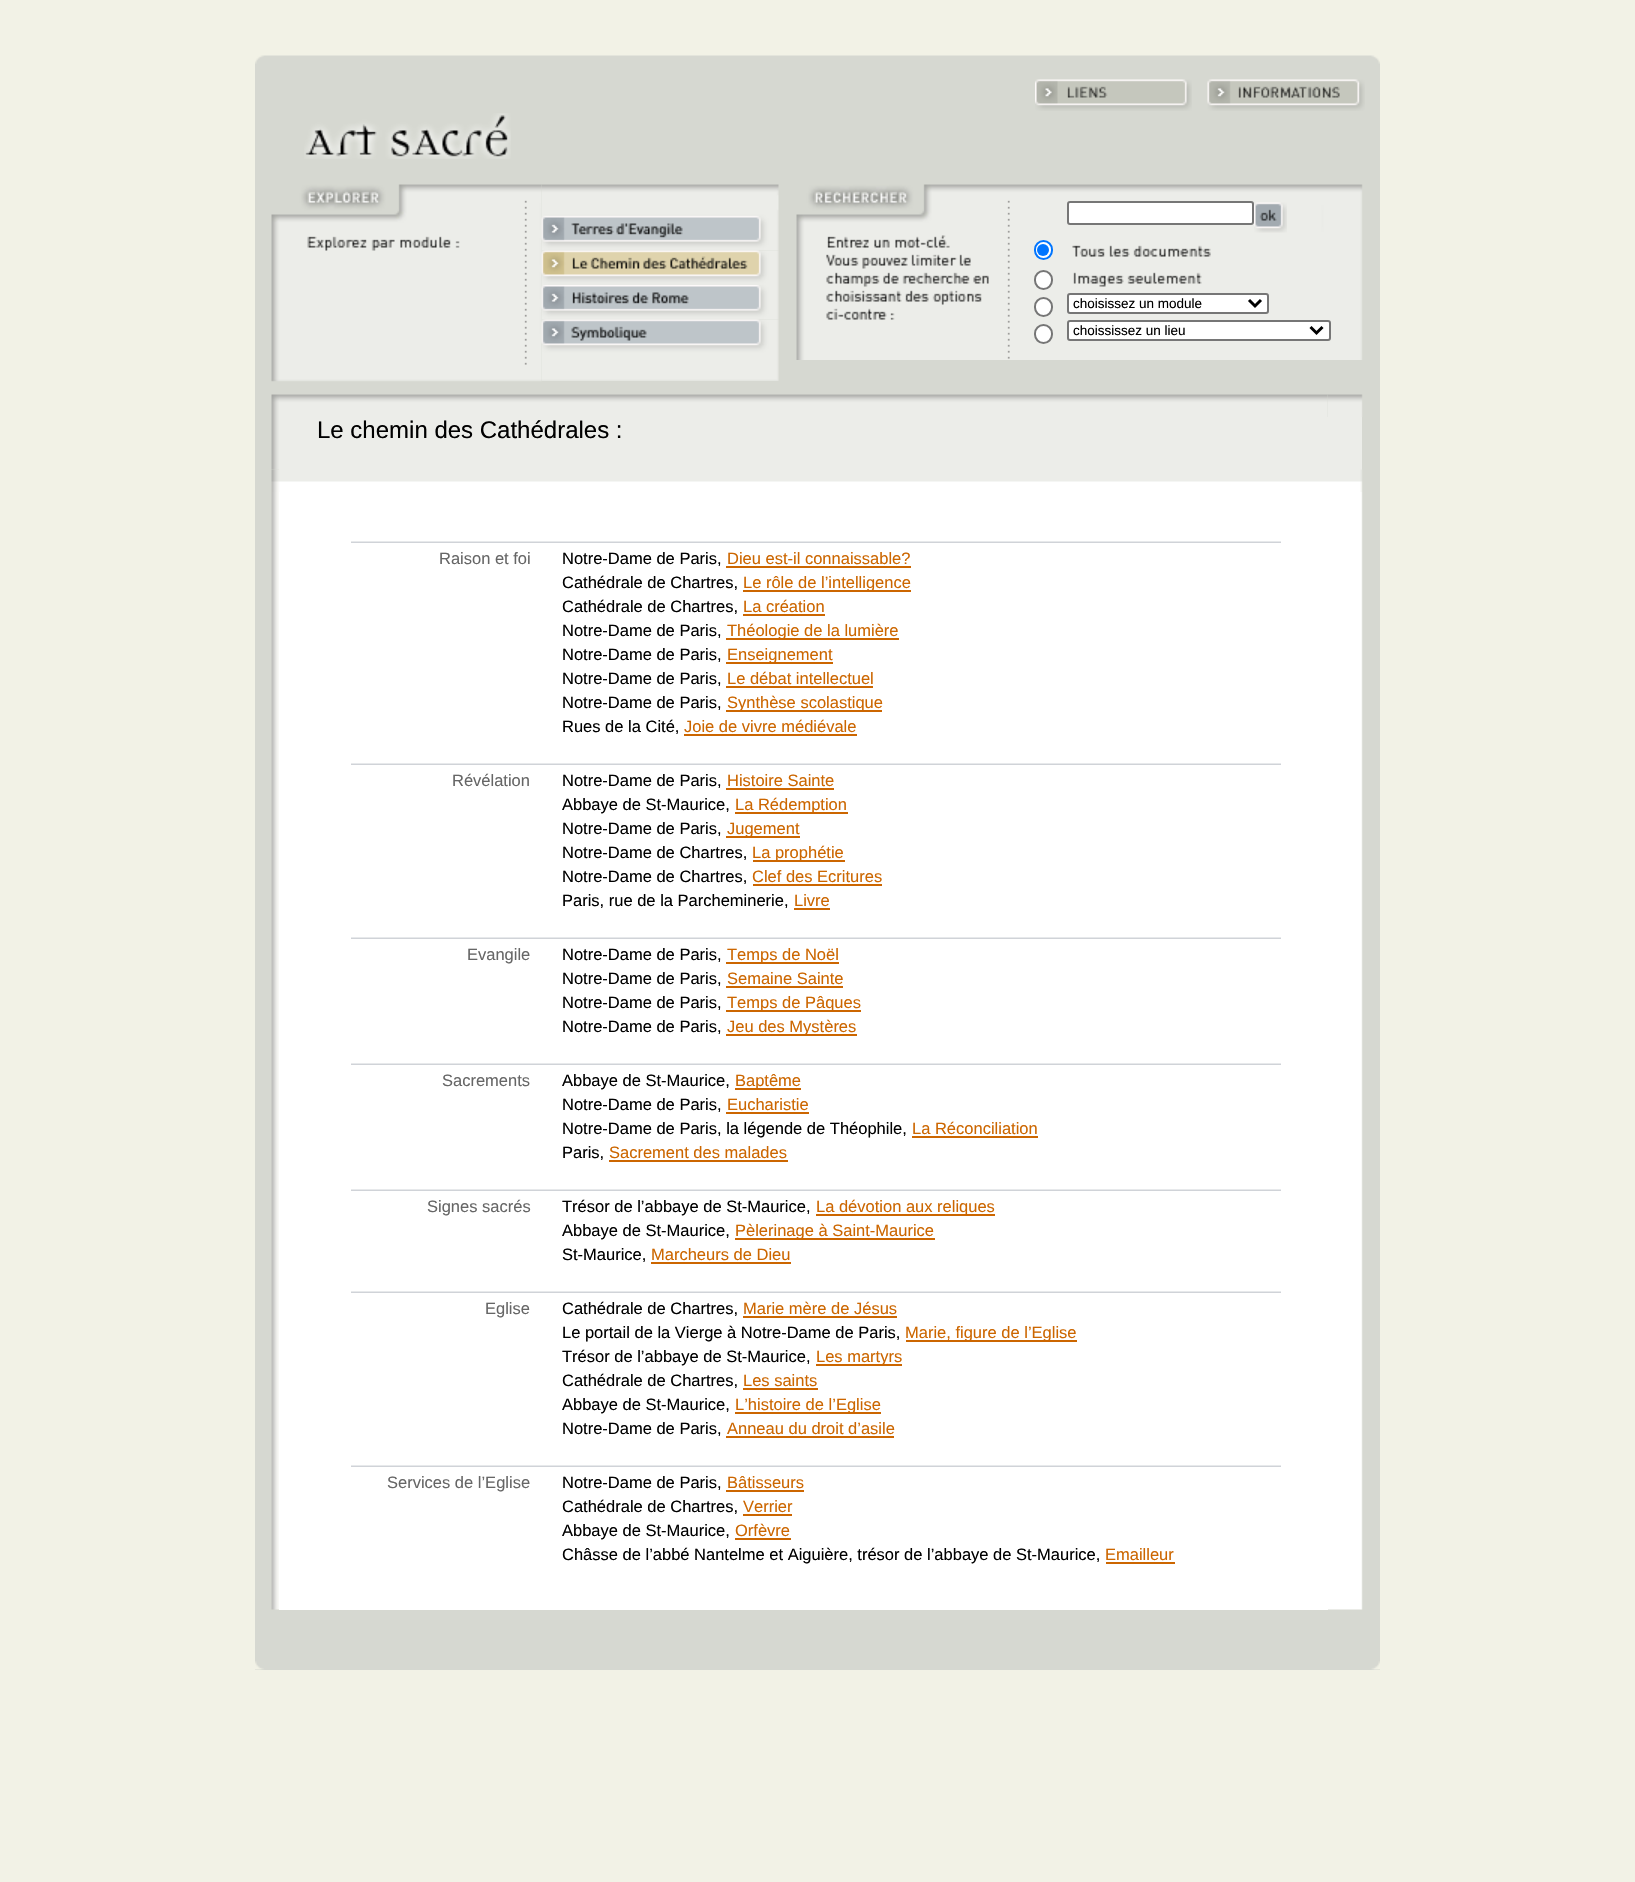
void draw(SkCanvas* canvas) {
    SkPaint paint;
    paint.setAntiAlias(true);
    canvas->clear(0xFFF2F2E6);
    paint.setColor(0xFFD6D8D1);
    canvas->drawRect(SkRect::MakeXYWH(255, 64, 1125, 1606), paint);
    canvas->drawImageRect(SkImages::DeferredFromEncodedData(SkData::MakeFromFileName("img1.png")), SkRect::MakeXYWH(255, 55, 1125, 9), SkSamplingOptions());
    canvas->drawImageRect(SkImages::DeferredFromEncodedData(SkData::MakeFromFileName("img2.png")), SkRect::MakeXYWH(1035, 79, 157, 32), SkSamplingOptions());
    canvas->drawImageRect(SkImages::DeferredFromEncodedData(SkData::MakeFromFileName("img3.png")), SkRect::MakeXYWH(1207, 79, 158, 32), SkSamplingOptions());
    canvas->drawImageRect(SkImages::DeferredFromEncodedData(SkData::MakeFromFileName("img4.png")), SkRect::MakeXYWH(304, 113, 207, 46), SkSamplingOptions());
    canvas->drawImageRect(SkImages::DeferredFromEncodedData(SkData::MakeFromFileName("img5.png")), SkRect::MakeXYWH(271, 184, 271, 198), SkSamplingOptions());
    canvas->drawImageRect(SkImages::DeferredFromEncodedData(SkData::MakeFromFileName("img6.png")), SkRect::MakeXYWH(541, 184, 238, 67), SkSamplingOptions());
    canvas->drawImageRect(SkImages::DeferredFromEncodedData(SkData::MakeFromFileName("img7.png")), SkRect::MakeXYWH(541, 250, 238, 35), SkSamplingOptions());
    canvas->drawImageRect(SkImages::DeferredFromEncodedData(SkData::MakeFromFileName("img8.png")), SkRect::MakeXYWH(541, 285, 238, 35), SkSamplingOptions());
    canvas->drawImageRect(SkImages::DeferredFromEncodedData(SkData::MakeFromFileName("img9.png")), SkRect::MakeXYWH(541, 319, 238, 62), SkSamplingOptions());
    canvas->drawImageRect(SkImages::DeferredFromEncodedData(SkData::MakeFromFileName("img10.png")), SkRect::MakeXYWH(796, 184, 567, 176), SkSamplingOptions());
    paint.setColor(0xFFFFFFFF);
    canvas->drawRoundRect(SkRect::MakeXYWH(1068, 202, 185, 22), 2, 2, paint);
    paint.setStyle(SkPaint::kStroke_Style);
    paint.setStrokeWidth(2);
    paint.setColor(0xFF767676);
    canvas->drawRoundRect(SkRect::MakeXYWH(1068, 202, 185, 22), 2, 2, paint);
    canvas->drawImageRect(SkImages::DeferredFromEncodedData(SkData::MakeFromFileName("img11.png")), SkRect::MakeXYWH(1254, 202, 33, 31), SkSamplingOptions());
    paint.setStyle(SkPaint::kFill_Style);
    paint.setColor(0xFFFFFFFF);
    canvas->drawRoundRect(SkRect::MakeXYWH(1035, 241, 17, 18), 8.5f, 8.5f, paint);
    paint.setStyle(SkPaint::kStroke_Style);
    paint.setColor(0xFF0075FF);
    canvas->drawRoundRect(SkRect::MakeXYWH(1035, 241, 17, 18), 8.5f, 8.5f, paint);
    paint.setStyle(SkPaint::kFill_Style);
    canvas->drawCircle(1043, 250, 6, paint);
    canvas->drawImageRect(SkImages::DeferredFromEncodedData(SkData::MakeFromFileName("img12.png")), SkRect::MakeXYWH(1072, 245, 139, 12), SkSamplingOptions());
    paint.setColor(0xFFFFFFFF);
    canvas->drawRoundRect(SkRect::MakeXYWH(1035, 271, 17, 18), 8.5f, 8.5f, paint);
    paint.setStyle(SkPaint::kStroke_Style);
    paint.setColor(0xFF767676);
    canvas->drawRoundRect(SkRect::MakeXYWH(1035, 271, 17, 18), 8.5f, 8.5f, paint);
    canvas->drawImageRect(SkImages::DeferredFromEncodedData(SkData::MakeFromFileName("img13.png")), SkRect::MakeXYWH(1073, 272, 129, 15), SkSamplingOptions());
    paint.setStyle(SkPaint::kFill_Style);
    paint.setColor(0xFFFFFFFF);
    canvas->drawRoundRect(SkRect::MakeXYWH(1035, 298, 17, 18), 8.5f, 8.5f, paint);
    paint.setStyle(SkPaint::kStroke_Style);
    paint.setColor(0xFF767676);
    canvas->drawRoundRect(SkRect::MakeXYWH(1035, 298, 17, 18), 8.5f, 8.5f, paint);
    paint.setStyle(SkPaint::kFill_Style);
    paint.setColor(0xFFFFFFFF);
    canvas->drawRoundRect(SkRect::MakeXYWH(1068, 294, 200, 19), 2, 2, paint);
    paint.setStyle(SkPaint::kStroke_Style);
    paint.setColor(0xFF767676);
    canvas->drawRoundRect(SkRect::MakeXYWH(1068, 294, 200, 19), 2, 2, paint);
    paint.setStrokeWidth(3);
    paint.setColor(0xFF000000);
    canvas->drawPath(SkPathBuilder().moveTo(1249, 300).lineTo(1255, 306).lineTo(1261, 300).detach(), paint);
    SkFont font1(fontMgr->matchFamilyStyle("Liberation Sans", SkFontStyle::Normal()), 13.5f);
    font1.setSubpixel(true);
    paint.setStyle(SkPaint::kFill_Style);
    canvas->drawString("choisissez un module", 1073, 308, font1, paint);
    paint.setColor(0xFFFFFFFF);
    canvas->drawRoundRect(SkRect::MakeXYWH(1035, 325, 17, 18), 8.5f, 8.5f, paint);
    paint.setStyle(SkPaint::kStroke_Style);
    paint.setStrokeWidth(2);
    paint.setColor(0xFF767676);
    canvas->drawRoundRect(SkRect::MakeXYWH(1035, 325, 17, 18), 8.5f, 8.5f, paint);
    paint.setStyle(SkPaint::kFill_Style);
    paint.setColor(0xFFFFFFFF);
    canvas->drawRoundRect(SkRect::MakeXYWH(1068, 321, 262, 19), 2, 2, paint);
    paint.setStyle(SkPaint::kStroke_Style);
    paint.setColor(0xFF767676);
    canvas->drawRoundRect(SkRect::MakeXYWH(1068, 321, 262, 19), 2, 2, paint);
    paint.setStrokeWidth(3);
    paint.setColor(0xFF000000);
    canvas->drawPath(SkPathBuilder().moveTo(1310.5f, 327).lineTo(1316.5f, 333).lineTo(1322.5f, 327).detach(), paint);
    paint.setStyle(SkPaint::kFill_Style);
    canvas->drawString("choississez un lieu", 1073, 335, font1, paint);
    canvas->drawImageRect(SkImages::DeferredFromEncodedData(SkData::MakeFromFileName("img14.png")), SkRect::MakeXYWH(271, 394, 8, 23), SkSamplingOptions());
    canvas->drawImageRect(SkImages::DeferredFromEncodedData(SkData::MakeFromFileName("img15.png")), SkRect::MakeXYWH(279, 394, 1049, 23), SkSamplingOptions());
    canvas->drawImageRect(SkImages::DeferredFromEncodedData(SkData::MakeFromFileName("img16.png")), SkRect::MakeXYWH(1327, 394, 36, 23), SkSamplingOptions());
    canvas->drawImageRect(SkImages::DeferredFromEncodedData(SkData::MakeFromFileName("img17.png")), SkRect::MakeXYWH(271, 417, 8, 53), SkSamplingOptions());
    paint.setColor(0xFFECEDE9);
    canvas->drawRect(SkRect::MakeXYWH(279, 417, 1083, 53), paint);
    SkFont font2(fontMgr->matchFamilyStyle("Liberation Sans", SkFontStyle::Normal()), 24);
    font2.setSubpixel(true);
    paint.setColor(0xFF000000);
    canvas->drawString("Le chemin des Cathédrales :", 317, 438, font2, paint);
    canvas->drawImageRect(SkImages::DeferredFromEncodedData(SkData::MakeFromFileName("img18.png")), SkRect::MakeXYWH(271, 469, 1092, 23), SkSamplingOptions());
    canvas->drawImageRect(SkImages::DeferredFromEncodedData(SkData::MakeFromFileName("img19.png")), SkRect::MakeXYWH(271, 492, 8, 1118), SkSamplingOptions());
    paint.setColor(0xFFFFFFFF);
    canvas->drawRect(SkRect::MakeXYWH(279, 492, 1049, 1118), paint);
    canvas->drawImageRect(SkImages::DeferredFromEncodedData(SkData::MakeFromFileName("img20.png")), SkRect::MakeXYWH(351, 541, 930, 2), SkSamplingOptions());
    SkFont font3(fontMgr->matchFamilyStyle("Liberation Sans", SkFontStyle::Normal()), 16.5f);
    font3.setSubpixel(true);
    paint.setColor(0xFF666666);
    canvas->drawString("Raison et foi", 439, 564, font3, paint);
    paint.setColor(0xFF000000);
    canvas->drawString("Notre-Dame de Paris,", 562, 564, font3, paint);
    paint.setColor(0xFFCC6600);
    canvas->drawString("Dieu est-il connaissable?", 727, 564, font3, paint);
    canvas->drawRect(SkRect::MakeXYWH(726, 566, 185, 2), paint);
    paint.setColor(0xFF000000);
    canvas->drawString("Cathédrale de Chartres,", 562, 588, font3, paint);
    paint.setColor(0xFFCC6600);
    canvas->drawRect(SkRect::MakeXYWH(743, 590, 168, 2), paint);
    canvas->drawString("Le rôle de l’intelligence", 743, 588, font3, paint);
    paint.setColor(0xFF000000);
    canvas->drawString("Cathédrale de Chartres,", 562, 612, font3, paint);
    paint.setColor(0xFFCC6600);
    canvas->drawString("La création", 743, 612, font3, paint);
    canvas->drawRect(SkRect::MakeXYWH(743, 614, 82, 2), paint);
    paint.setColor(0xFF000000);
    canvas->drawString("Notre-Dame de Paris,", 562, 636, font3, paint);
    paint.setColor(0xFFCC6600);
    canvas->drawRect(SkRect::MakeXYWH(726, 638, 173, 2), paint);
    canvas->drawString("Théologie de la lumière", 727, 636, font3, paint);
    paint.setColor(0xFF000000);
    canvas->drawString("Notre-Dame de Paris,", 562, 660, font3, paint);
    paint.setColor(0xFFCC6600);
    canvas->drawRect(SkRect::MakeXYWH(726, 662, 107, 2), paint);
    canvas->drawString("Enseignement", 727, 660, font3, paint);
    paint.setColor(0xFF000000);
    canvas->drawString("Notre-Dame de Paris,", 562, 684, font3, paint);
    paint.setColor(0xFFCC6600);
    canvas->drawString("Le débat intellectuel", 727, 684, font3, paint);
    canvas->drawRect(SkRect::MakeXYWH(726, 686, 147, 2), paint);
    paint.setColor(0xFF000000);
    canvas->drawString("Notre-Dame de Paris,", 562, 708, font3, paint);
    paint.setColor(0xFFCC6600);
    canvas->drawRect(SkRect::MakeXYWH(726, 710, 156, 2), paint);
    canvas->drawString("Synthèse scolastique", 727, 708, font3, paint);
    paint.setColor(0xFF000000);
    canvas->drawString("Rues de la Cité,", 562, 732, font3, paint);
    paint.setColor(0xFFCC6600);
    canvas->drawString("Joie de vivre médiévale", 684, 732, font3, paint);
    canvas->drawRect(SkRect::MakeXYWH(684, 734, 173, 2), paint);
    canvas->drawImageRect(SkImages::DeferredFromEncodedData(SkData::MakeFromFileName("img20.png")), SkRect::MakeXYWH(351, 763, 930, 2), SkSamplingOptions());
    paint.setColor(0xFF666666);
    canvas->drawString("Révélation", 452, 786, font3, paint);
    paint.setColor(0xFF000000);
    canvas->drawString("Notre-Dame de Paris,", 562, 786, font3, paint);
    paint.setColor(0xFFCC6600);
    canvas->drawString("Histoire Sainte", 727, 786, font3, paint);
    canvas->drawRect(SkRect::MakeXYWH(726, 788, 108, 2), paint);
    paint.setColor(0xFF000000);
    canvas->drawString("Abbaye de St-Maurice,", 562, 810, font3, paint);
    paint.setColor(0xFFCC6600);
    canvas->drawRect(SkRect::MakeXYWH(735, 812, 113, 2), paint);
    canvas->drawString("La Rédemption", 735, 810, font3, paint);
    paint.setColor(0xFF000000);
    canvas->drawString("Notre-Dame de Paris,", 562, 834, font3, paint);
    paint.setColor(0xFFCC6600);
    canvas->drawRect(SkRect::MakeXYWH(726, 836, 74, 2), paint);
    canvas->drawString("Jugement", 727, 834, font3, paint);
    paint.setColor(0xFF000000);
    canvas->drawString("Notre-Dame de Chartres,", 562, 858, font3, paint);
    paint.setColor(0xFFCC6600);
    canvas->drawRect(SkRect::MakeXYWH(753, 860, 92, 2), paint);
    canvas->drawString("La prophétie", 752, 858, font3, paint);
    paint.setColor(0xFF000000);
    canvas->drawString("Notre-Dame de Chartres,", 562, 882, font3, paint);
    paint.setColor(0xFFCC6600);
    canvas->drawString("Clef des Ecritures", 752, 882, font3, paint);
    canvas->drawRect(SkRect::MakeXYWH(753, 884, 129, 2), paint);
    paint.setColor(0xFF000000);
    canvas->drawString("Paris, rue de la Parcheminerie,", 562, 906, font3, paint);
    paint.setColor(0xFFCC6600);
    canvas->drawString("Livre", 794, 906, font3, paint);
    canvas->drawRect(SkRect::MakeXYWH(794, 908, 36, 2), paint);
    canvas->drawImageRect(SkImages::DeferredFromEncodedData(SkData::MakeFromFileName("img20.png")), SkRect::MakeXYWH(351, 937, 930, 2), SkSamplingOptions());
    paint.setColor(0xFF666666);
    canvas->drawString("Evangile", 467, 960, font3, paint);
    paint.setColor(0xFF000000);
    canvas->drawString("Notre-Dame de Paris,", 562, 960, font3, paint);
    paint.setColor(0xFFCC6600);
    canvas->drawRect(SkRect::MakeXYWH(726, 962, 113, 2), paint);
    canvas->drawString("Temps de Noël", 727, 960, font3, paint);
    paint.setColor(0xFF000000);
    canvas->drawString("Notre-Dame de Paris,", 562, 984, font3, paint);
    paint.setColor(0xFFCC6600);
    canvas->drawString("Semaine Sainte", 727, 984, font3, paint);
    canvas->drawRect(SkRect::MakeXYWH(726, 986, 117, 2), paint);
    paint.setColor(0xFF000000);
    canvas->drawString("Notre-Dame de Paris,", 562, 1008, font3, paint);
    paint.setColor(0xFFCC6600);
    canvas->drawRect(SkRect::MakeXYWH(726, 1010, 135, 2), paint);
    canvas->drawString("Temps de Pâques", 727, 1008, font3, paint);
    paint.setColor(0xFF000000);
    canvas->drawString("Notre-Dame de Paris,", 562, 1032, font3, paint);
    paint.setColor(0xFFCC6600);
    canvas->drawRect(SkRect::MakeXYWH(726, 1034, 131, 2), paint);
    canvas->drawString("Jeu des Mystères", 727, 1032, font3, paint);
    canvas->drawImageRect(SkImages::DeferredFromEncodedData(SkData::MakeFromFileName("img20.png")), SkRect::MakeXYWH(351, 1063, 930, 2), SkSamplingOptions());
    paint.setColor(0xFF666666);
    canvas->drawString("Sacrements", 442, 1086, font3, paint);
    paint.setColor(0xFF000000);
    canvas->drawString("Abbaye de St-Maurice,", 562, 1086, font3, paint);
    paint.setColor(0xFFCC6600);
    canvas->drawRect(SkRect::MakeXYWH(735, 1088, 66, 2), paint);
    canvas->drawString("Baptême", 735, 1086, font3, paint);
    paint.setColor(0xFF000000);
    canvas->drawString("Notre-Dame de Paris,", 562, 1110, font3, paint);
    paint.setColor(0xFFCC6600);
    canvas->drawString("Eucharistie", 727, 1110, font3, paint);
    canvas->drawRect(SkRect::MakeXYWH(726, 1112, 83, 2), paint);
    paint.setColor(0xFF000000);
    canvas->drawString("Notre-Dame de Paris, la légende de Théophile,", 562, 1134, font3, paint);
    paint.setColor(0xFFCC6600);
    canvas->drawString("La Réconciliation", 912, 1134, font3, paint);
    canvas->drawRect(SkRect::MakeXYWH(912, 1136, 126, 2), paint);
    paint.setColor(0xFF000000);
    canvas->drawString("Paris,", 562, 1158, font3, paint);
    paint.setColor(0xFFCC6600);
    canvas->drawString("Sacrement des malades", 609, 1158, font3, paint);
    canvas->drawRect(SkRect::MakeXYWH(609, 1160, 179, 2), paint);
    canvas->drawImageRect(SkImages::DeferredFromEncodedData(SkData::MakeFromFileName("img20.png")), SkRect::MakeXYWH(351, 1189, 930, 2), SkSamplingOptions());
    paint.setColor(0xFF666666);
    canvas->drawString("Signes sacrés", 427, 1212, font3, paint);
    paint.setColor(0xFF000000);
    canvas->drawString("Trésor de l’abbaye de St-Maurice,", 562, 1212, font3, paint);
    paint.setColor(0xFFCC6600);
    canvas->drawRect(SkRect::MakeXYWH(816, 1214, 179, 2), paint);
    canvas->drawString("La dévotion aux reliques", 816, 1212, font3, paint);
    paint.setColor(0xFF000000);
    canvas->drawString("Abbaye de St-Maurice,", 562, 1236, font3, paint);
    paint.setColor(0xFFCC6600);
    canvas->drawRect(SkRect::MakeXYWH(735, 1238, 200, 2), paint);
    canvas->drawString("Pèlerinage à Saint-Maurice", 735, 1236, font3, paint);
    paint.setColor(0xFF000000);
    canvas->drawString("St-Maurice,", 562, 1260, font3, paint);
    paint.setColor(0xFFCC6600);
    canvas->drawString("Marcheurs de Dieu", 651, 1260, font3, paint);
    canvas->drawRect(SkRect::MakeXYWH(651, 1262, 140, 2), paint);
    canvas->drawImageRect(SkImages::DeferredFromEncodedData(SkData::MakeFromFileName("img20.png")), SkRect::MakeXYWH(351, 1291, 930, 2), SkSamplingOptions());
    paint.setColor(0xFF666666);
    canvas->drawString("Eglise", 485, 1314, font3, paint);
    paint.setColor(0xFF000000);
    canvas->drawString("Cathédrale de Chartres,", 562, 1314, font3, paint);
    paint.setColor(0xFFCC6600);
    canvas->drawString("Marie mère de Jésus", 743, 1314, font3, paint);
    canvas->drawRect(SkRect::MakeXYWH(743, 1316, 154, 2), paint);
    paint.setColor(0xFF000000);
    canvas->drawString("Le portail de la Vierge à Notre-Dame de Paris,", 562, 1338, font3, paint);
    paint.setColor(0xFFCC6600);
    canvas->drawRect(SkRect::MakeXYWH(906, 1340, 171, 2), paint);
    canvas->drawString("Marie, figure de l’Eglise", 905, 1338, font3, paint);
    paint.setColor(0xFF000000);
    canvas->drawString("Trésor de l’abbaye de St-Maurice,", 562, 1362, font3, paint);
    paint.setColor(0xFFCC6600);
    canvas->drawRect(SkRect::MakeXYWH(816, 1364, 86, 2), paint);
    canvas->drawString("Les martyrs", 816, 1362, font3, paint);
    paint.setColor(0xFF000000);
    canvas->drawString("Cathédrale de Chartres,", 562, 1386, font3, paint);
    paint.setColor(0xFFCC6600);
    canvas->drawString("Les saints", 743, 1386, font3, paint);
    canvas->drawRect(SkRect::MakeXYWH(743, 1388, 75, 2), paint);
    paint.setColor(0xFF000000);
    canvas->drawString("Abbaye de St-Maurice,", 562, 1410, font3, paint);
    paint.setColor(0xFFCC6600);
    canvas->drawRect(SkRect::MakeXYWH(735, 1412, 146, 2), paint);
    canvas->drawString("L’histoire de l’Eglise", 735, 1410, font3, paint);
    paint.setColor(0xFF000000);
    canvas->drawString("Notre-Dame de Paris,", 562, 1434, font3, paint);
    paint.setColor(0xFFCC6600);
    canvas->drawString("Anneau du droit d’asile", 727, 1434, font3, paint);
    canvas->drawRect(SkRect::MakeXYWH(726, 1436, 168, 2), paint);
    canvas->drawImageRect(SkImages::DeferredFromEncodedData(SkData::MakeFromFileName("img20.png")), SkRect::MakeXYWH(351, 1465, 930, 2), SkSamplingOptions());
    paint.setColor(0xFF666666);
    canvas->drawString("Services de l’Eglise", 387, 1488, font3, paint);
    paint.setColor(0xFF000000);
    canvas->drawString("Notre-Dame de Paris,", 562, 1488, font3, paint);
    paint.setColor(0xFFCC6600);
    canvas->drawString("Bâtisseurs", 727, 1488, font3, paint);
    canvas->drawRect(SkRect::MakeXYWH(726, 1490, 78, 2), paint);
    paint.setColor(0xFF000000);
    canvas->drawString("Cathédrale de Chartres,", 562, 1512, font3, paint);
    paint.setColor(0xFFCC6600);
    canvas->drawString("Verrier", 743, 1512, font3, paint);
    canvas->drawRect(SkRect::MakeXYWH(743, 1514, 49, 2), paint);
    paint.setColor(0xFF000000);
    canvas->drawString("Abbaye de St-Maurice,", 562, 1536, font3, paint);
    paint.setColor(0xFFCC6600);
    canvas->drawString("Orfèvre", 735, 1536, font3, paint);
    canvas->drawRect(SkRect::MakeXYWH(735, 1538, 56, 2), paint);
    paint.setColor(0xFF000000);
    canvas->drawString("Châsse de l’abbé Nantelme et Aiguière, trésor de l’abbaye de St-Maurice,", 562, 1560, font3, paint);
    paint.setColor(0xFFCC6600);
    canvas->drawString("Emailleur", 1105, 1560, font3, paint);
    canvas->drawRect(SkRect::MakeXYWH(1106, 1562, 69, 2), paint);
    canvas->drawImageRect(SkImages::DeferredFromEncodedData(SkData::MakeFromFileName("img21.png")), SkRect::MakeXYWH(1328, 492, 35, 1118), SkSamplingOptions());
    canvas->drawImageRect(SkImages::DeferredFromEncodedData(SkData::MakeFromFileName("img22.png")), SkRect::MakeXYWH(255, 1661, 1125, 9), SkSamplingOptions());
}
